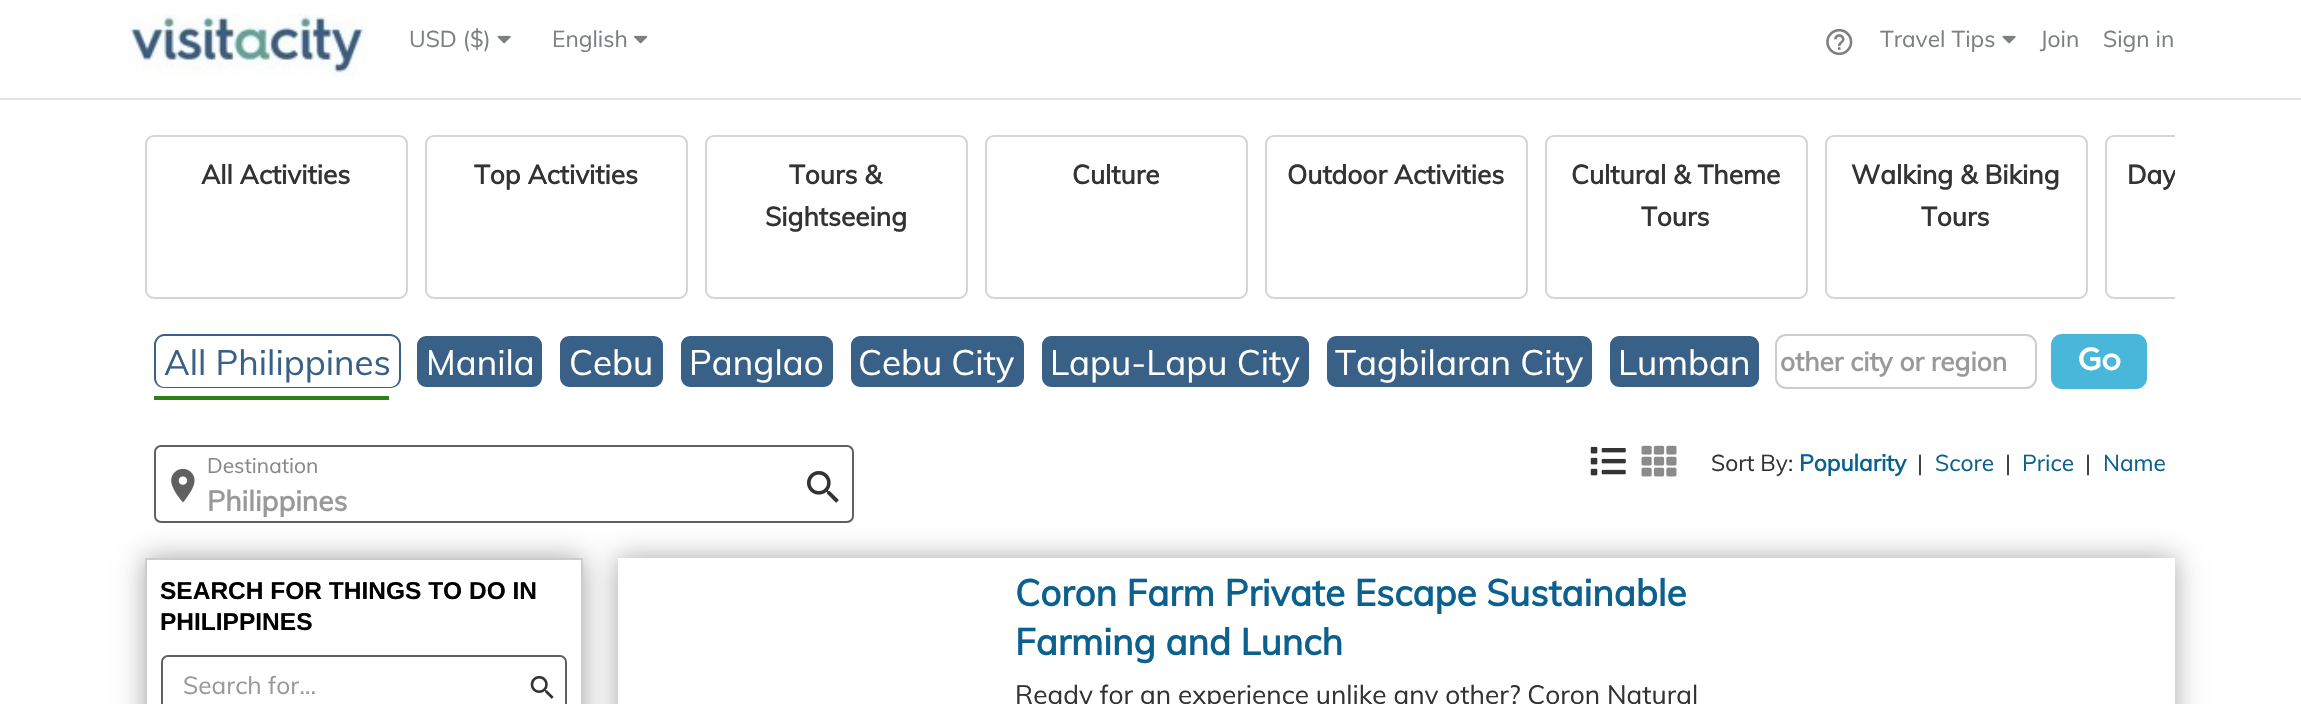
void draw(SkCanvas* canvas) {
    SkPaint paint;
    paint.setAntiAlias(true);
    canvas->clear(0xFFFFFFFF);
    canvas->drawImageRect(SkImages::DeferredFromEncodedData(SkData::MakeFromFileName("img1.png")), SkRect::MakeXYWH(128, 14, 238, 63), SkSamplingOptions());
    SkFont font1(fontMgr->matchFamilyStyle("Muli", SkFontStyle::Normal()), 22.75f);
    font1.setSubpixel(true);
    paint.setColor(0xFF7C8082);
    canvas->drawString("USD ($)", 409, 47, font1, paint);
    canvas->drawImageRect(SkImages::DeferredFromEncodedData(SkData::MakeFromFileName("img2.png")), SkRect::MakeXYWH(497, 35, 14, 9), SkSamplingOptions());
    canvas->drawString("English", 552, 47, font1, paint);
    canvas->drawImageRect(SkImages::DeferredFromEncodedData(SkData::MakeFromFileName("img3.png")), SkRect::MakeXYWH(634, 35, 14, 9), SkSamplingOptions());
    canvas->drawImageRect(SkImages::DeferredFromEncodedData(SkData::MakeFromFileName("img4.png")), SkRect::MakeXYWH(1826, 28, 27, 28), SkSamplingOptions());
    canvas->drawString("Travel Tips", 1880, 47, font1, paint);
    canvas->drawImageRect(SkImages::DeferredFromEncodedData(SkData::MakeFromFileName("img2.png")), SkRect::MakeXYWH(2002, 35, 14, 9), SkSamplingOptions());
    canvas->drawString("Join", 2040, 47, font1, paint);
    canvas->drawString("Sign in", 2103, 47, font1, paint);
    paint.setColor(0xFFE0E1E5);
    canvas->drawRect(SkRect::MakeXYWH(0, 98, 2301, 2), paint);
    paint.setStyle(SkPaint::kStroke_Style);
    paint.setStrokeWidth(2);
    paint.setColor(0xFFD7D4D2);
    canvas->drawRoundRect(SkRect::MakeXYWH(146, 136, 261, 162), 8, 8, paint);
    SkFont font2(fontMgr->matchFamilyStyle("Muli", SkFontStyle::Bold()), 26.25f);
    font2.setSubpixel(true);
    paint.setStyle(SkPaint::kFill_Style);
    paint.setColor(0xFF333333);
    canvas->drawString("All Activities", 201, 184, font2, paint);
    paint.setStyle(SkPaint::kStroke_Style);
    paint.setColor(0xFFD7D4D2);
    canvas->drawRoundRect(SkRect::MakeXYWH(426, 136, 261, 162), 8, 8, paint);
    paint.setStyle(SkPaint::kFill_Style);
    paint.setColor(0xFF333333);
    canvas->drawString("Top Activities", 474, 184, font2, paint);
    paint.setStyle(SkPaint::kStroke_Style);
    paint.setColor(0xFFD7D4D2);
    canvas->drawRoundRect(SkRect::MakeXYWH(706, 136, 261, 162), 8, 8, paint);
    paint.setStyle(SkPaint::kFill_Style);
    paint.setColor(0xFF333333);
    canvas->drawString("Tours &", 789, 184, font2, paint);
    canvas->drawString("Sightseeing", 765, 226, font2, paint);
    paint.setStyle(SkPaint::kStroke_Style);
    paint.setColor(0xFFD7D4D2);
    canvas->drawRoundRect(SkRect::MakeXYWH(986, 136, 261, 162), 8, 8, paint);
    paint.setStyle(SkPaint::kFill_Style);
    paint.setColor(0xFF333333);
    canvas->drawString("Culture", 1072, 184, font2, paint);
    paint.setStyle(SkPaint::kStroke_Style);
    paint.setColor(0xFFD7D4D2);
    canvas->drawRoundRect(SkRect::MakeXYWH(1266, 136, 261, 162), 8, 8, paint);
    paint.setStyle(SkPaint::kFill_Style);
    paint.setColor(0xFF333333);
    canvas->drawString("Outdoor Activities", 1287, 184, font2, paint);
    paint.setStyle(SkPaint::kStroke_Style);
    paint.setColor(0xFFD7D4D2);
    canvas->drawRoundRect(SkRect::MakeXYWH(1546, 136, 261, 162), 8, 8, paint);
    paint.setStyle(SkPaint::kFill_Style);
    paint.setColor(0xFF333333);
    canvas->drawString("Cultural & Theme", 1571, 184, font2, paint);
    canvas->drawString("Tours", 1641, 226, font2, paint);
    paint.setStyle(SkPaint::kStroke_Style);
    paint.setColor(0xFFD7D4D2);
    canvas->drawRoundRect(SkRect::MakeXYWH(1826, 136, 261, 162), 8, 8, paint);
    paint.setStyle(SkPaint::kFill_Style);
    paint.setColor(0xFF333333);
    canvas->drawString("Walking & Biking", 1851, 184, font2, paint);
    canvas->drawString("Tours", 1921, 226, font2, paint);
    canvas->save();
    canvas->clipRect(SkRect::MakeXYWH(128, 100, 2047, 199));
    paint.setStyle(SkPaint::kStroke_Style);
    paint.setColor(0xFFD7D4D2);
    canvas->drawRoundRect(SkRect::MakeXYWH(2106, 136, 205, 162), 8, 8, paint);
    paint.setStyle(SkPaint::kFill_Style);
    paint.setColor(0xFF333333);
    canvas->drawString("Day", 2127, 184, font2, paint);
    canvas->restore();
    paint.setColor(0xFF396087);
    canvas->drawPath(SkPathBuilder(SkPathFillType::kEvenOdd).moveTo(164, 334).lineTo(215, 334).lineTo(215, 388).lineTo(164, 388).cubicTo(159, 388, 154, 384, 154, 378).lineTo(154, 345).cubicTo(154, 339, 159, 334, 164, 334).close().moveTo(164, 336).lineTo(215, 336).lineTo(215, 387).lineTo(164, 387).cubicTo(160, 387, 156, 383, 156, 378).lineTo(156, 345).cubicTo(156, 340, 160, 336, 164, 336).close().detach(), paint);
    canvas->drawPath(SkPathBuilder(SkPathFillType::kEvenOdd).moveTo(215, 334).lineTo(390, 334).cubicTo(396, 334, 401, 339, 401, 345).lineTo(401, 378).cubicTo(401, 384, 396, 388, 390, 388).lineTo(215, 388).close().moveTo(215, 336).lineTo(390, 336).cubicTo(395, 336, 399, 340, 399, 345).lineTo(399, 378).cubicTo(399, 383, 395, 387, 390, 387).lineTo(215, 387).close().detach(), paint);
    SkFont font3(fontMgr->matchFamilyStyle("Muli", SkFontStyle::Normal()), 35);
    font3.setSubpixel(true);
    canvas->drawString("All Philippines", 164, 375, font3, paint);
    paint.setColor(0xFF2D8017);
    canvas->drawRect(SkRect::MakeXYWH(154, 396, 235, 4), paint);
    paint.setColor(0xFF396087);
    canvas->drawRoundRect(SkRect::MakeXYWH(416, 335, 127, 53), 10, 10, paint);
    paint.setStyle(SkPaint::kStroke_Style);
    paint.setColor(0xFFFFFFFF);
    canvas->drawRoundRect(SkRect::MakeXYWH(416, 335, 127, 53), 10, 10, paint);
    paint.setStyle(SkPaint::kFill_Style);
    canvas->drawString("Manila", 426, 375, font3, paint);
    paint.setColor(0xFF396087);
    canvas->drawRoundRect(SkRect::MakeXYWH(559, 335, 105, 53), 10, 10, paint);
    paint.setStyle(SkPaint::kStroke_Style);
    paint.setColor(0xFFFFFFFF);
    canvas->drawRoundRect(SkRect::MakeXYWH(559, 335, 105, 53), 10, 10, paint);
    paint.setStyle(SkPaint::kFill_Style);
    canvas->drawString("Cebu", 569, 375, font3, paint);
    paint.setColor(0xFF396087);
    canvas->drawRoundRect(SkRect::MakeXYWH(680, 335, 154, 53), 10, 10, paint);
    paint.setStyle(SkPaint::kStroke_Style);
    paint.setColor(0xFFFFFFFF);
    canvas->drawRoundRect(SkRect::MakeXYWH(680, 335, 154, 53), 10, 10, paint);
    paint.setStyle(SkPaint::kFill_Style);
    canvas->drawString("Panglao", 689, 375, font3, paint);
    paint.setColor(0xFF396087);
    canvas->drawRoundRect(SkRect::MakeXYWH(850, 335, 175, 53), 10, 10, paint);
    paint.setStyle(SkPaint::kStroke_Style);
    paint.setColor(0xFFFFFFFF);
    canvas->drawRoundRect(SkRect::MakeXYWH(850, 335, 175, 53), 10, 10, paint);
    paint.setStyle(SkPaint::kFill_Style);
    canvas->drawString("Cebu City", 858, 375, font3, paint);
    paint.setColor(0xFF396087);
    canvas->drawRoundRect(SkRect::MakeXYWH(1041, 335, 269, 53), 10, 10, paint);
    paint.setStyle(SkPaint::kStroke_Style);
    paint.setColor(0xFFFFFFFF);
    canvas->drawRoundRect(SkRect::MakeXYWH(1041, 335, 269, 53), 10, 10, paint);
    paint.setStyle(SkPaint::kFill_Style);
    canvas->drawString("Lapu-Lapu City", 1050, 375, font3, paint);
    paint.setColor(0xFF396087);
    canvas->drawRoundRect(SkRect::MakeXYWH(1326, 335, 267, 53), 10, 10, paint);
    paint.setStyle(SkPaint::kStroke_Style);
    paint.setColor(0xFFFFFFFF);
    canvas->drawRoundRect(SkRect::MakeXYWH(1326, 335, 267, 53), 10, 10, paint);
    paint.setStyle(SkPaint::kFill_Style);
    canvas->drawString("Tagbilaran City", 1335, 375, font3, paint);
    paint.setColor(0xFF396087);
    canvas->drawRoundRect(SkRect::MakeXYWH(1609, 335, 151, 53), 10, 10, paint);
    paint.setStyle(SkPaint::kStroke_Style);
    paint.setColor(0xFFFFFFFF);
    canvas->drawRoundRect(SkRect::MakeXYWH(1609, 335, 151, 53), 10, 10, paint);
    paint.setStyle(SkPaint::kFill_Style);
    canvas->drawString("Lumban", 1618, 375, font3, paint);
    paint.setStyle(SkPaint::kStroke_Style);
    paint.setColor(0xFFCCCCCC);
    canvas->drawRoundRect(SkRect::MakeXYWH(1776, 335, 260, 53), 10, 10, paint);
    paint.setStyle(SkPaint::kFill_Style);
    paint.setColor(0xFF999999);
    canvas->drawString("other city or region", 1780, 371, font2, paint);
    paint.setColor(0xFF49B7D9);
    canvas->drawRoundRect(SkRect::MakeXYWH(2051, 334, 96, 55), 11, 11, paint);
    SkFont font4(fontMgr->matchFamilyStyle("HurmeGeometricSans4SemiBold", SkFontStyle(600, SkFontStyle::kNormal_Width, SkFontStyle::kUpright_Slant)), 32);
    font4.setSubpixel(true);
    paint.setColor(0xFFFFFFFF);
    canvas->drawString("Go", 2078, 370, font4, paint);
    paint.setStyle(SkPaint::kStroke_Style);
    paint.setColor(0xFF606060);
    canvas->drawRoundRect(SkRect::MakeXYWH(155, 446, 698, 76), 6, 6, paint);
    SkFont font5(fontMgr->matchFamilyStyle("Muli", SkFontStyle::Normal()), 21);
    font5.setSubpixel(true);
    paint.setStyle(SkPaint::kFill_Style);
    paint.setColor(0xFF8C8787);
    canvas->drawString("Destination", 207, 473, font5, paint);
    canvas->drawImageRect(SkImages::DeferredFromEncodedData(SkData::MakeFromFileName("img5.png")), SkRect::MakeXYWH(171, 468, 24, 35), SkSamplingOptions());
    SkFont font6(fontMgr->matchFamilyStyle("Muli", SkFontStyle::Bold()), 28);
    font6.setSubpixel(true);
    paint.setColor(0xFF999999);
    canvas->drawString("Philippines", 207, 511, font6, paint);
    canvas->drawImageRect(SkImages::DeferredFromEncodedData(SkData::MakeFromFileName("img6.png")), SkRect::MakeXYWH(807, 471, 32, 32), SkSamplingOptions());
    canvas->drawImageRect(SkImages::DeferredFromEncodedData(SkData::MakeFromFileName("img7.png")), SkRect::MakeXYWH(1590, 446, 36, 30), SkSamplingOptions());
    canvas->drawImageRect(SkImages::DeferredFromEncodedData(SkData::MakeFromFileName("img8.png")), SkRect::MakeXYWH(1641, 445, 36, 32), SkSamplingOptions());
    paint.setColor(0xFF333333);
    canvas->drawString("Sort By:", 1711, 471, font1, paint);
    SkFont font7(fontMgr->matchFamilyStyle("Muli", SkFontStyle::Bold()), 22.75f);
    font7.setSubpixel(true);
    paint.setColor(0xFF0C608E);
    canvas->drawString("Popularity", 1799, 471, font7, paint);
    paint.setColor(0xFF333333);
    canvas->drawString("|", 1917, 471, font1, paint);
    paint.setColor(0xFF0C608E);
    canvas->drawString("Score", 1935, 471, font1, paint);
    paint.setColor(0xFF333333);
    canvas->drawString("|", 2005, 471, font1, paint);
    paint.setColor(0xFF0C608E);
    canvas->drawString("Price", 2022, 471, font1, paint);
    paint.setColor(0xFF333333);
    canvas->drawString("|", 2085, 471, font1, paint);
    paint.setColor(0xFF0C608E);
    canvas->drawString("Name", 2103, 471, font1, paint);
    paint.setColor(0x59000000);
    paint.setMaskFilter(SkMaskFilter::MakeBlur(kNormal_SkBlurStyle, 13));
    canvas->drawRect(SkRect::MakeXYWH(618, 558, 1557, 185), paint);
    paint.setMaskFilter(nullptr);
    paint.setColor(0xFFFFFFFF);
    canvas->drawRect(SkRect::MakeXYWH(618, 558, 1557, 146), paint);
    canvas->save();
    canvas->clipPath(SkPathBuilder(SkPathFillType::kEvenOdd).moveTo(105, 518).lineTo(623, 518).lineTo(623, 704).lineTo(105, 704).close().moveTo(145, 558).lineTo(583, 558).lineTo(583, 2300).lineTo(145, 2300).close().detach(), true);
    paint.setColor(0x59000000);
    paint.setMaskFilter(SkMaskFilter::MakeBlur(kNormal_SkBlurStyle, 13));
    canvas->drawRect(SkRect::MakeXYWH(145, 558, 438, 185), paint);
    paint.setMaskFilter(nullptr);
    canvas->restore();
    paint.setStyle(SkPaint::kStroke_Style);
    paint.setColor(0xFFCCCCCC);
    canvas->drawRect(SkRect::MakeXYWH(146, 559, 436, 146), paint);
    SkFont font8(fontMgr->matchFamilyStyle("Liberation Sans", SkFontStyle::Bold()), 24.5f);
    font8.setSubpixel(true);
    paint.setStyle(SkPaint::kFill_Style);
    paint.setColor(0xFF000000);
    canvas->drawString("SEARCH FOR THINGS TO DO IN", 160, 599, font8, paint);
    canvas->drawString("PHILIPPINES", 160, 630, font8, paint);
    paint.setStyle(SkPaint::kStroke_Style);
    paint.setColor(0xFF606060);
    canvas->drawRoundRect(SkRect::MakeXYWH(162, 656, 404, 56), 6, 6, paint);
    SkFont font9(fontMgr->matchFamilyStyle("Muli", SkFontStyle::Normal()), 24.5f);
    font9.setSubpixel(true);
    paint.setStyle(SkPaint::kFill_Style);
    paint.setColor(0xFF999999);
    canvas->drawString("Search for...", 183, 694, font9, paint);
    canvas->drawImageRect(SkImages::DeferredFromEncodedData(SkData::MakeFromFileName("img9.png")), SkRect::MakeXYWH(530, 675, 24, 24), SkSamplingOptions());
    SkFont font10(fontMgr->matchFamilyStyle("Muli", SkFontStyle::Bold()), 36.75f);
    font10.setSubpixel(true);
    paint.setColor(0xFF0C608E);
    canvas->drawString("Coron Farm Private Escape Sustainable", 1015, 606, font10, paint);
    canvas->drawString("Farming and Lunch", 1015, 655, font10, paint);
    SkFont font11(fontMgr->matchFamilyStyle("Muli", SkFontStyle::Normal()), 26.25f);
    font11.setSubpixel(true);
    paint.setColor(0xFF333333);
    canvas->drawString("Ready for an experience unlike any other? Coron Natural", 1015, 704, font11, paint);
}
